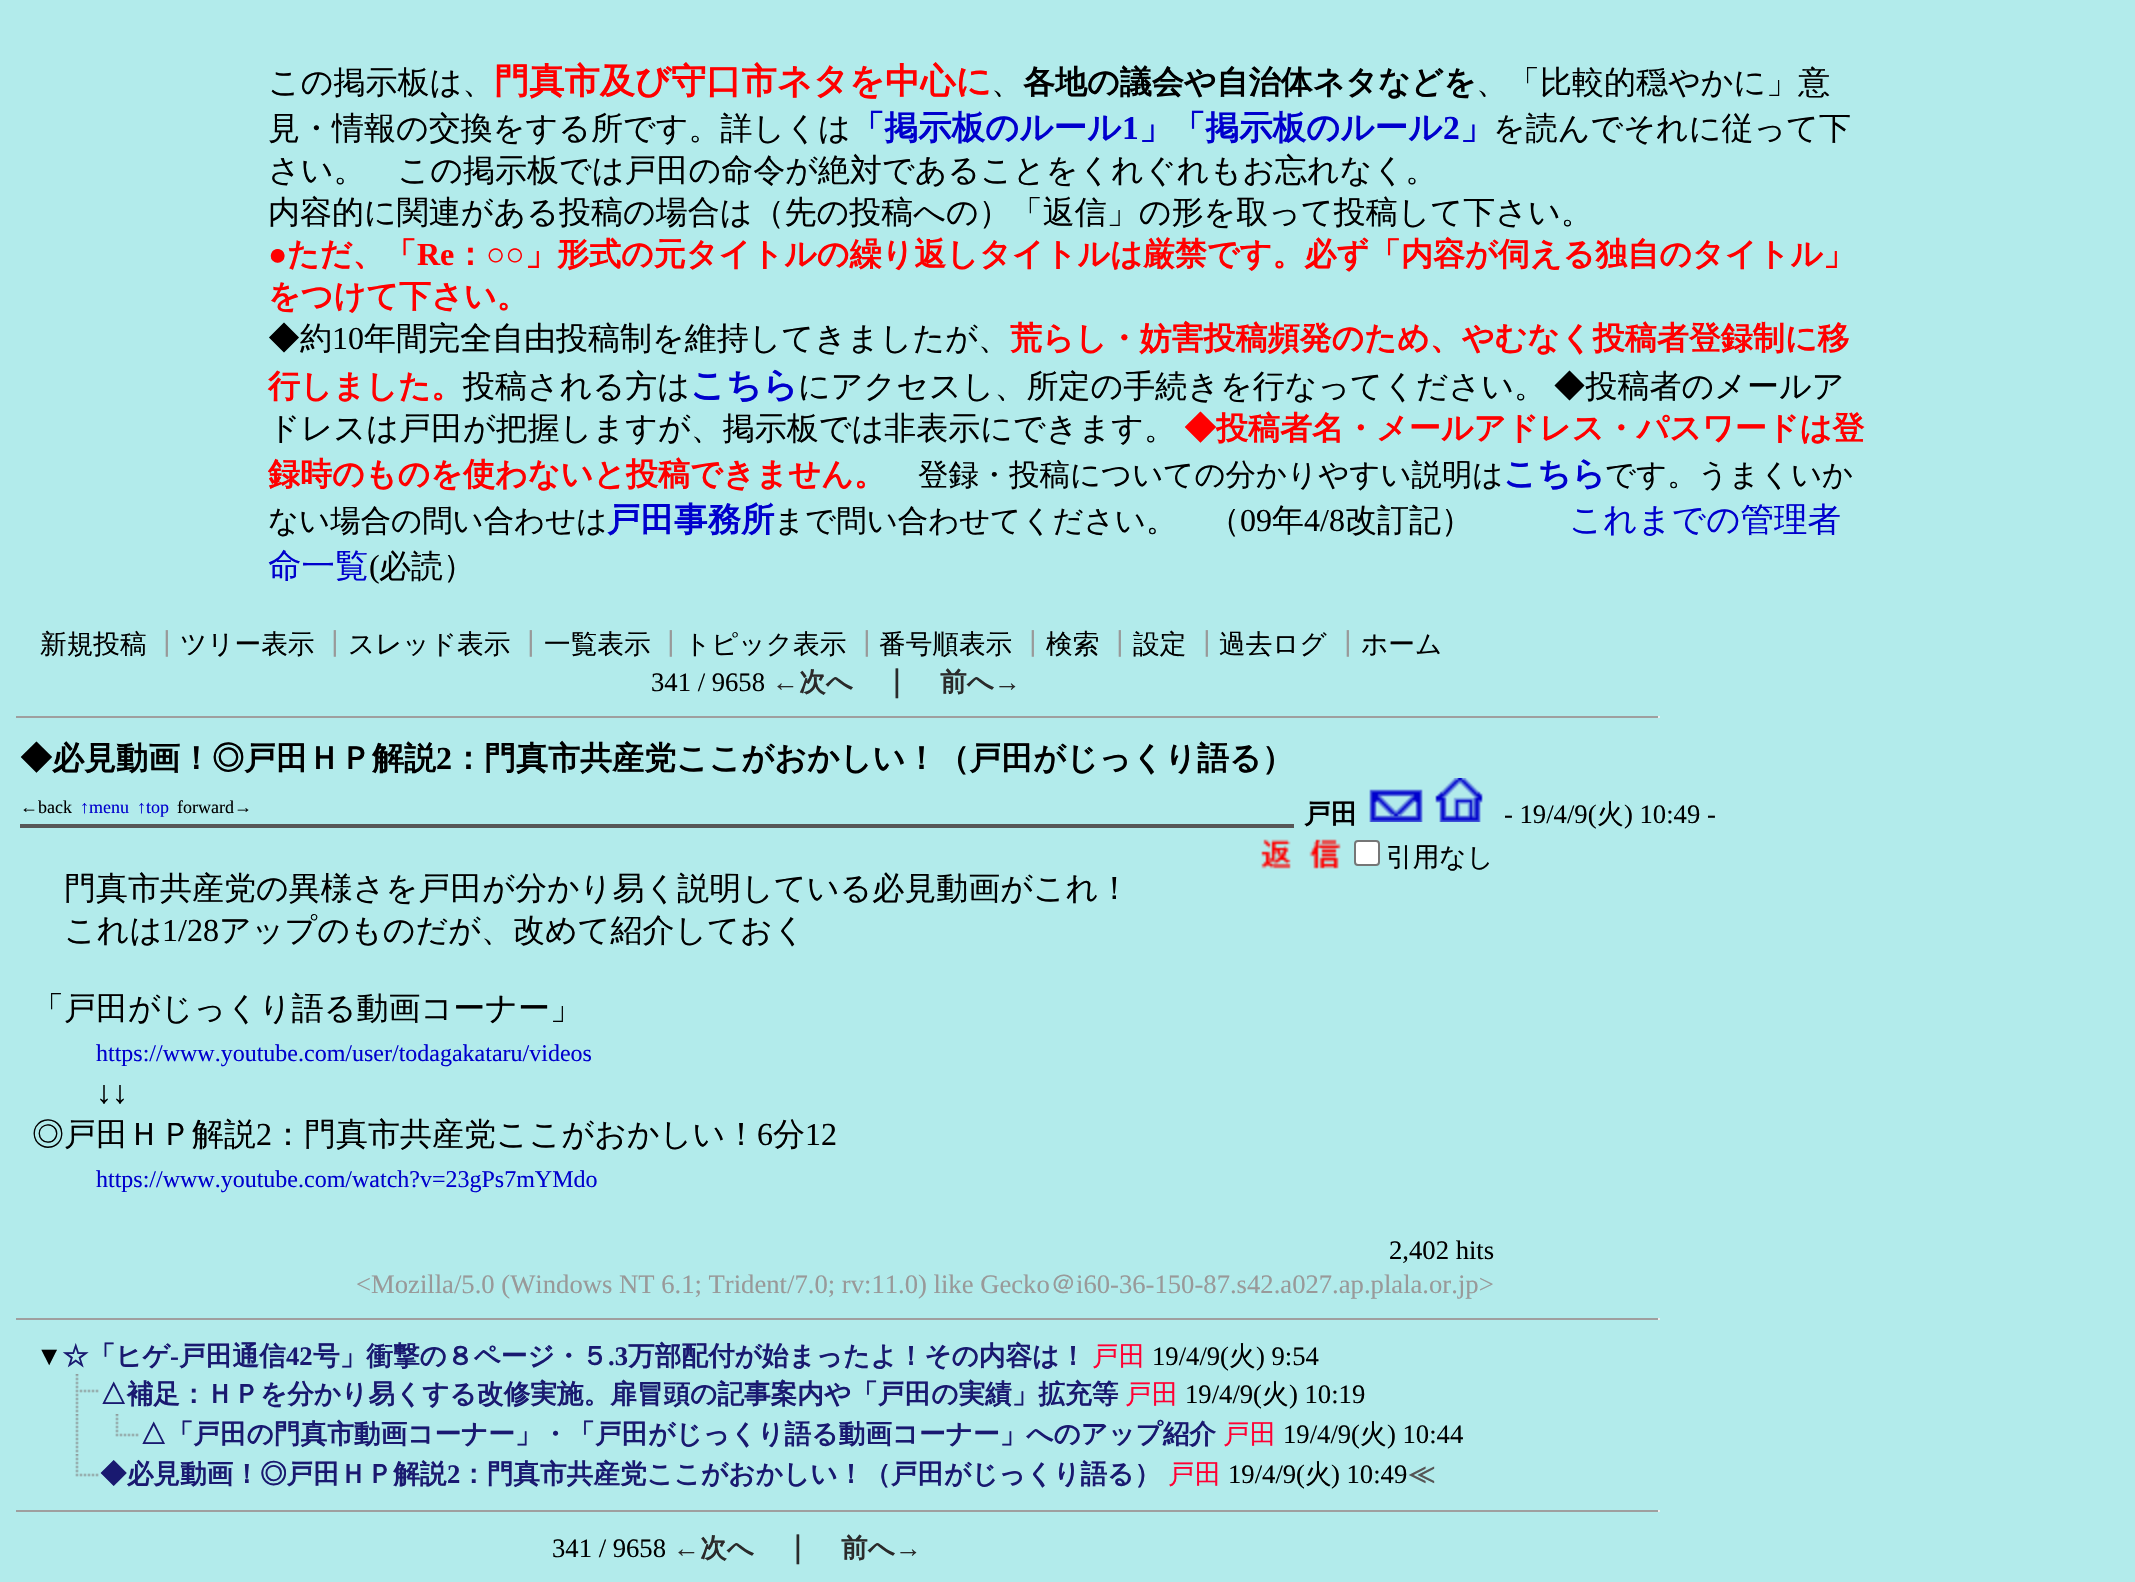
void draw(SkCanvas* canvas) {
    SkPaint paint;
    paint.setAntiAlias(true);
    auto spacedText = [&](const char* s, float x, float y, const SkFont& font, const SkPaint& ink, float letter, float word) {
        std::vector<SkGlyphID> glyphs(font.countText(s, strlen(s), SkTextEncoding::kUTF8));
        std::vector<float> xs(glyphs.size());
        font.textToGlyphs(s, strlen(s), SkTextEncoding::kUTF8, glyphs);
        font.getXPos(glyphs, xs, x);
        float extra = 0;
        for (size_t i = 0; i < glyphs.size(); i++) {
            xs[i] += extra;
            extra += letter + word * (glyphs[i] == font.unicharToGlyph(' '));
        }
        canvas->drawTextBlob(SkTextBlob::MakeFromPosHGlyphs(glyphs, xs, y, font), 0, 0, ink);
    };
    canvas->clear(0xFFB2EBEB);
    SkFont font1(fontMgr->matchFamilyStyle("WenQuanYi Zen Hei", SkFontStyle(500, SkFontStyle::kNormal_Width, SkFontStyle::kUpright_Slant)), 32);
    font1.setSubpixel(true);
    paint.setColor(0xFF000000);
    canvas->drawString("この掲示板は、", 268, 93, font1, paint);
    SkFont font2(fontMgr->matchFamilyStyle("WenQuanYi Zen Hei", SkFontStyle::Bold()), 35.25f);
    font2.setSubpixel(true);
    paint.setColor(0xFFFF0000);
    canvas->drawString("門真市及び守口市ネタを中心に", 494, 93, font2, paint);
    paint.setColor(0xFF000000);
    canvas->drawString("、", 991, 93, font1, paint);
    SkFont font3(fontMgr->matchFamilyStyle("WenQuanYi Zen Hei", SkFontStyle::Bold()), 32);
    font3.setSubpixel(true);
    canvas->drawString("各地の議会や自治体ネタなどを", 1023, 93, font3, paint);
    canvas->drawString("、「比較的穏やかに」意", 1476, 93, font1, paint);
    canvas->drawString("見・情報の交換をする所です。詳しくは", 268, 139, font1, paint);
    SkFont font4(fontMgr->matchFamilyStyle("WenQuanYi Zen Hei", SkFontStyle::Bold()), 33.5f);
    font4.setSubpixel(true);
    paint.setColor(0xFF0000CD);
    canvas->drawString("「掲示板のルール", 851, 139, font4, paint);
    SkFont font5(fontMgr->matchFamilyStyle("Liberation Serif", SkFontStyle::Bold()), 33.5f);
    font5.setSubpixel(true);
    canvas->drawString("1", 1122, 139, font5, paint);
    canvas->drawString("」", 1139, 139, font4, paint);
    canvas->drawString("「掲示板のルール", 1172, 139, font4, paint);
    canvas->drawString("2", 1443, 139, font5, paint);
    canvas->drawString("」", 1460, 139, font4, paint);
    paint.setColor(0xFF000000);
    canvas->drawString("を読んでそれに従って下", 1493, 139, font1, paint);
    canvas->drawString("さい。　この掲示板では戸田の命令が絶対であることをくれぐれもお忘れなく。", 268, 181, font1, paint);
    canvas->drawString("内容的に関連がある投稿の場合は（先の投稿への）「返信」の形を取って投稿して下さい。", 268, 223, font1, paint);
    SkFont font6(fontMgr->matchFamilyStyle("Liberation Serif", SkFontStyle::Bold()), 32);
    font6.setSubpixel(true);
    paint.setColor(0xFFFF0000);
    canvas->drawString("●", 268, 265, font6, paint);
    canvas->drawString("ただ、「", 287, 265, font3, paint);
    canvas->drawString("Re", 417, 265, font6, paint);
    canvas->drawString("：", 454, 265, font3, paint);
    canvas->drawString("○○", 486, 265, font6, paint);
    canvas->drawString("」形式の元タイトルの繰り返しタイトルは厳禁です。必ず「内容が伺える独自のタイトル」", 525, 265, font3, paint);
    canvas->drawString("をつけて下さい。", 268, 307, font3, paint);
    paint.setColor(0xFF000000);
    canvas->drawString("◆約", 268, 349, font1, paint);
    SkFont font7(fontMgr->matchFamilyStyle("Liberation Serif", SkFontStyle::Normal()), 32);
    font7.setSubpixel(true);
    canvas->drawString("10", 332, 349, font7, paint);
    canvas->drawString("年間完全自由投稿制を維持してきましたが、", 364, 349, font1, paint);
    paint.setColor(0xFFFF0000);
    canvas->drawString("荒らし・妨害投稿頻発のため、やむなく投稿者登録制に移", 1010, 349, font3, paint);
    canvas->drawString("行しました。", 268, 397, font3, paint);
    paint.setColor(0xFF000000);
    canvas->drawString("投稿される方は", 463, 397, font1, paint);
    paint.setColor(0xFF0000CD);
    canvas->drawString("こちら", 690, 397, font2, paint);
    paint.setColor(0xFF000000);
    spacedText("にアクセスし、所定の手続きを行なってください。 ◆投稿者のメールア", 798, 397, font1, paint, 0, -2);
    canvas->drawString("ドレスは戸田が把握しますが、掲示板では非表示にできます。", 268, 439, font1, paint);
    paint.setColor(0xFFFF0000);
    canvas->drawString("◆投稿者名・メールアドレス・パスワードは登", 1184, 439, font3, paint);
    canvas->drawString("録時のものを使わないと投稿できません。", 268, 485, font3, paint);
    SkFont font8(fontMgr->matchFamilyStyle("WenQuanYi Zen Hei", SkFontStyle(500, SkFontStyle::kNormal_Width, SkFontStyle::kUpright_Slant)), 30.4f);
    font8.setSubpixel(true);
    paint.setColor(0xFF000000);
    canvas->drawString("登録・投稿についての分かりやすい説明は", 918, 485, font8, paint);
    paint.setColor(0xFF0000CD);
    canvas->drawString("こちら", 1503, 485, font4, paint);
    paint.setColor(0xFF000000);
    canvas->drawString("です。うまくいか", 1605, 485, font8, paint);
    canvas->drawString("ない場合の問い合わせは", 268, 531, font8, paint);
    paint.setColor(0xFF0000CD);
    canvas->drawString("戸田事務所", 607, 531, font4, paint);
    paint.setColor(0xFF000000);
    canvas->drawString("まで問い合わせてください。", 774, 531, font8, paint);
    canvas->drawString("（", 1208, 531, font1, paint);
    canvas->drawString("09", 1240, 531, font7, paint);
    canvas->drawString("年", 1272, 531, font1, paint);
    canvas->drawString("4/8", 1304, 531, font7, paint);
    canvas->drawString("改訂記）", 1345, 531, font1, paint);
    SkFont font9(fontMgr->matchFamilyStyle("WenQuanYi Zen Hei", SkFontStyle(500, SkFontStyle::kNormal_Width, SkFontStyle::kUpright_Slant)), 33.5f);
    font9.setSubpixel(true);
    paint.setColor(0xFF0000CD);
    canvas->drawString("これまでの管理者", 1569, 531, font9, paint);
    canvas->drawString("命一覧", 268, 577, font9, paint);
    paint.setColor(0xFF000000);
    canvas->drawString("(", 369, 577, font7, paint);
    canvas->drawString("必読）", 379, 577, font1, paint);
    SkFont font10(fontMgr->matchFamilyStyle("WenQuanYi Zen Hei", SkFontStyle(500, SkFontStyle::kNormal_Width, SkFontStyle::kUpright_Slant)), 26.65f);
    font10.setSubpixel(true);
    canvas->drawString("新規投稿", 40, 653, font10, paint);
    paint.setColor(0xFF999999);
    canvas->drawString("┃", 153, 653, font10, paint);
    paint.setColor(0xFF000000);
    canvas->drawString("ツリー表示", 180, 653, font10, paint);
    paint.setColor(0xFF999999);
    canvas->drawString("┃", 321, 653, font10, paint);
    paint.setColor(0xFF000000);
    canvas->drawString("スレッド表示", 348, 653, font10, paint);
    paint.setColor(0xFF999999);
    canvas->drawString("┃", 517, 653, font10, paint);
    paint.setColor(0xFF000000);
    canvas->drawString("一覧表示", 544, 653, font10, paint);
    paint.setColor(0xFF999999);
    canvas->drawString("┃", 657, 653, font10, paint);
    paint.setColor(0xFF000000);
    canvas->drawString("トピック表示", 684, 653, font10, paint);
    paint.setColor(0xFF999999);
    canvas->drawString("┃", 853, 653, font10, paint);
    paint.setColor(0xFF000000);
    canvas->drawString("番号順表示", 879, 653, font10, paint);
    paint.setColor(0xFF999999);
    canvas->drawString("┃", 1019, 653, font10, paint);
    paint.setColor(0xFF000000);
    canvas->drawString("検索", 1046, 653, font10, paint);
    paint.setColor(0xFF999999);
    canvas->drawString("┃", 1106, 653, font10, paint);
    paint.setColor(0xFF000000);
    canvas->drawString("設定", 1133, 653, font10, paint);
    paint.setColor(0xFF999999);
    canvas->drawString("┃", 1193, 653, font10, paint);
    paint.setColor(0xFF000000);
    canvas->drawString("過去ログ", 1219, 653, font10, paint);
    paint.setColor(0xFF999999);
    canvas->drawString("┃", 1334, 653, font10, paint);
    paint.setColor(0xFF000000);
    canvas->drawString("ホーム", 1361, 653, font10, paint);
    SkFont font11(fontMgr->matchFamilyStyle("Liberation Serif", SkFontStyle::Normal()), 26.65f);
    font11.setSubpixel(true);
    canvas->drawString("341 / 9658", 651, 691, font11, paint);
    SkFont font12(fontMgr->matchFamilyStyle("Liberation Serif", SkFontStyle::Bold()), 26.65f);
    font12.setSubpixel(true);
    paint.setColor(0xFF2A2A2A);
    canvas->drawString("←", 772, 691, font12, paint);
    SkFont font13(fontMgr->matchFamilyStyle("WenQuanYi Zen Hei", SkFontStyle::Bold()), 26.65f);
    font13.setSubpixel(true);
    canvas->drawString("次へ", 799, 691, font13, paint);
    SkFont font14(fontMgr->matchFamilyStyle("WenQuanYi Zen Hei", SkFontStyle::Bold()), 29);
    font14.setSubpixel(true);
    canvas->drawString("｜", 882, 691, font14, paint);
    canvas->drawString("前へ", 940, 691, font13, paint);
    canvas->drawString("→", 994, 691, font12, paint);
    paint.setColor(0xFF9F9F9F);
    canvas->drawRect(SkRect::MakeXYWH(16, 716, 1644, 2), paint);
    paint.setColor(0xFFEEEEEE);
    canvas->drawRect(SkRect::MakeXYWH(1658, 716, 2, 2), paint);
    paint.setColor(0xFF000000);
    canvas->drawString("◆必見動画！◎戸田ＨＰ解説", 20, 769, font3, paint);
    canvas->drawString("2", 436, 769, font6, paint);
    canvas->drawString("：門真市共産党ここがおかしい！（戸田がじっくり語る）", 452, 769, font3, paint);
    SkFont font15(fontMgr->matchFamilyStyle("Liberation Serif", SkFontStyle::Normal()), 18);
    font15.setSubpixel(true);
    canvas->drawString("←back", 20, 813, font15, paint);
    paint.setColor(0xFF0000CD);
    canvas->drawString("↑menu", 80, 813, font15, paint);
    canvas->drawString("↑top", 137, 813, font15, paint);
    paint.setColor(0xFF000000);
    canvas->drawString("forward→", 177, 813, font15, paint);
    paint.setColor(0xFF575757);
    canvas->drawRect(SkRect::MakeXYWH(20, 824, 1274, 4), paint);
    paint.setColor(0xFF000000);
    canvas->drawString("戸田", 1304, 823, font13, paint);
    canvas->drawImageRect(SkImages::DeferredFromEncodedData(SkData::MakeFromFileName("img1.png")), SkRect::MakeXYWH(1369, 789, 54, 33), SkSamplingOptions());
    canvas->drawImageRect(SkImages::DeferredFromEncodedData(SkData::MakeFromFileName("img2.png")), SkRect::MakeXYWH(1435, 778, 48, 44), SkSamplingOptions());
    canvas->drawString("- 19/4/9(", 1504, 823, font11, paint);
    canvas->drawString("火", 1597, 823, font10, paint);
    canvas->drawString(") 10:49 -", 1624, 823, font11, paint);
    canvas->drawImageRect(SkImages::DeferredFromEncodedData(SkData::MakeFromFileName("img3.png")), SkRect::MakeXYWH(1261, 839, 80, 30), SkSamplingOptions());
    paint.setColor(0xFFFFFFFF);
    canvas->drawRoundRect(SkRect::MakeXYWH(1355, 841, 24, 24), 3, 3, paint);
    paint.setStyle(SkPaint::kStroke_Style);
    paint.setStrokeWidth(2);
    paint.setColor(0xFF767676);
    canvas->drawRoundRect(SkRect::MakeXYWH(1355, 841, 24, 24), 3, 3, paint);
    paint.setStyle(SkPaint::kFill_Style);
    paint.setColor(0xFF000000);
    canvas->drawString("引用なし", 1386, 866, font10, paint);
    canvas->drawString("門真市共産党の異様さを戸田が分かり易く説明している必見動画がこれ！", 64, 899, font1, paint);
    canvas->drawString("これは", 64, 941, font1, paint);
    canvas->drawString("1/28", 162, 941, font7, paint);
    canvas->drawString("アップのものだが、改めて紹介しておく", 219, 941, font1, paint);
    canvas->drawString("「戸田がじっくり語る動画コーナー」", 32, 1019, font1, paint);
    SkFont font16(fontMgr->matchFamilyStyle("Liberation Serif", SkFontStyle::Normal()), 24);
    font16.setSubpixel(true);
    paint.setColor(0xFF0000CD);
    canvas->drawString("https://www.youtube.com/user/todagakataru/videos", 96, 1061, font16, paint);
    paint.setColor(0xFF000000);
    canvas->drawString("↓↓", 96, 1103, font7, paint);
    canvas->drawString("◎戸田ＨＰ解説", 32, 1145, font1, paint);
    canvas->drawString("2", 256, 1145, font7, paint);
    canvas->drawString("：門真市共産党ここがおかしい！", 272, 1145, font1, paint);
    canvas->drawString("6", 757, 1145, font7, paint);
    canvas->drawString("分", 773, 1145, font1, paint);
    canvas->drawString("12", 805, 1145, font7, paint);
    paint.setColor(0xFF0000CD);
    canvas->drawString("https://www.youtube.com/watch?v=23gPs7mYMdo", 96, 1187, font16, paint);
    paint.setColor(0xFF000000);
    canvas->drawString("2,402 hits", 1389, 1259, font11, paint);
    paint.setColor(0xFF999999);
    canvas->drawString("<Mozilla/5.0 (Windows NT 6.1; Trident/7.0; rv:11.0) like Gecko", 356, 1293, font11, paint);
    canvas->drawString("＠", 1050, 1293, font10, paint);
    canvas->drawString("i60-36-150-87.s42.a027.ap.plala.or.jp>", 1076, 1293, font11, paint);
    paint.setColor(0xFF9F9F9F);
    canvas->drawRect(SkRect::MakeXYWH(16, 1318, 1644, 2), paint);
    paint.setColor(0xFFEEEEEE);
    canvas->drawRect(SkRect::MakeXYWH(1658, 1318, 2, 2), paint);
    paint.setColor(0xFF000000);
    canvas->drawString("▼", 36, 1365, font11, paint);
    paint.setColor(0xFF191970);
    canvas->drawString("☆「ヒゲ", 62, 1365, font13, paint);
    canvas->drawString("-", 170, 1365, font12, paint);
    canvas->drawString("戸田通信", 179, 1365, font13, paint);
    canvas->drawString("42", 286, 1365, font12, paint);
    canvas->drawString("号」衝撃の８ページ・５", 313, 1365, font13, paint);
    canvas->drawString(".3", 608, 1365, font12, paint);
    canvas->drawString("万部配付が始まったよ！その内容は！", 628, 1365, font13, paint);
    paint.setColor(0xFFFF0033);
    canvas->drawString("戸田", 1092, 1365, font10, paint);
    paint.setColor(0xFF000000);
    canvas->drawString("19/4/9(", 1152, 1365, font11, paint);
    canvas->drawString("火", 1229, 1365, font10, paint);
    canvas->drawString(") 9:54", 1256, 1365, font11, paint);
    canvas->drawImageRect(SkImages::DeferredFromEncodedData(SkData::MakeFromFileName("img4.png")), SkRect::MakeXYWH(75, 1374, 24, 39), SkSamplingOptions());
    paint.setColor(0xFF191970);
    canvas->drawString("△補足：ＨＰを分かり易くする改修実施。扉冒頭の記事案内や「戸田の実績」拡充等", 100, 1403, font13, paint);
    paint.setColor(0xFFFF0033);
    canvas->drawString("戸田", 1125, 1403, font10, paint);
    paint.setColor(0xFF000000);
    canvas->drawString("19/4/9(", 1185, 1403, font11, paint);
    canvas->drawString("火", 1262, 1403, font10, paint);
    canvas->drawString(") 10:19", 1289, 1403, font11, paint);
    canvas->drawImageRect(SkImages::DeferredFromEncodedData(SkData::MakeFromFileName("img5.png")), SkRect::MakeXYWH(75, 1414, 4, 39), SkSamplingOptions());
    canvas->drawImageRect(SkImages::DeferredFromEncodedData(SkData::MakeFromFileName("img6.png")), SkRect::MakeXYWH(115, 1414, 24, 23), SkSamplingOptions());
    paint.setColor(0xFF191970);
    canvas->drawString("△「戸田の門真市動画コーナー」・「戸田がじっくり語る動画コーナー」へのアップ紹介", 140, 1443, font13, paint);
    paint.setColor(0xFFFF0033);
    canvas->drawString("戸田", 1223, 1443, font10, paint);
    paint.setColor(0xFF000000);
    canvas->drawString("19/4/9(", 1283, 1443, font11, paint);
    canvas->drawString("火", 1360, 1443, font10, paint);
    canvas->drawString(") 10:44", 1387, 1443, font11, paint);
    canvas->drawImageRect(SkImages::DeferredFromEncodedData(SkData::MakeFromFileName("img6.png")), SkRect::MakeXYWH(75, 1454, 24, 23), SkSamplingOptions());
    paint.setColor(0xFF191970);
    canvas->drawString("◆必見動画！◎戸田ＨＰ解説", 100, 1483, font13, paint);
    canvas->drawString("2", 447, 1483, font12, paint);
    canvas->drawString("：門真市共産党ここがおかしい！（戸田がじっくり語る）", 460, 1483, font13, paint);
    paint.setColor(0xFFFF0033);
    canvas->drawString("戸田", 1168, 1483, font10, paint);
    paint.setColor(0xFF000000);
    canvas->drawString("19/4/9(", 1228, 1483, font11, paint);
    canvas->drawString("火", 1305, 1483, font10, paint);
    canvas->drawString(") 10:49", 1331, 1483, font11, paint);
    paint.setColor(0xFF555555);
    canvas->drawString("≪", 1408, 1483, font13, paint);
    paint.setColor(0xFF9F9F9F);
    canvas->drawRect(SkRect::MakeXYWH(16, 1510, 1644, 2), paint);
    paint.setColor(0xFFEEEEEE);
    canvas->drawRect(SkRect::MakeXYWH(1658, 1510, 2, 2), paint);
    paint.setColor(0xFF000000);
    canvas->drawString("341 / 9658", 552, 1557, font11, paint);
    paint.setColor(0xFF2A2A2A);
    canvas->drawString("←", 673, 1557, font12, paint);
    canvas->drawString("次へ", 700, 1557, font13, paint);
    canvas->drawString("｜", 783, 1557, font14, paint);
    canvas->drawString("前へ", 841, 1557, font13, paint);
    canvas->drawString("→", 895, 1557, font12, paint);
}
